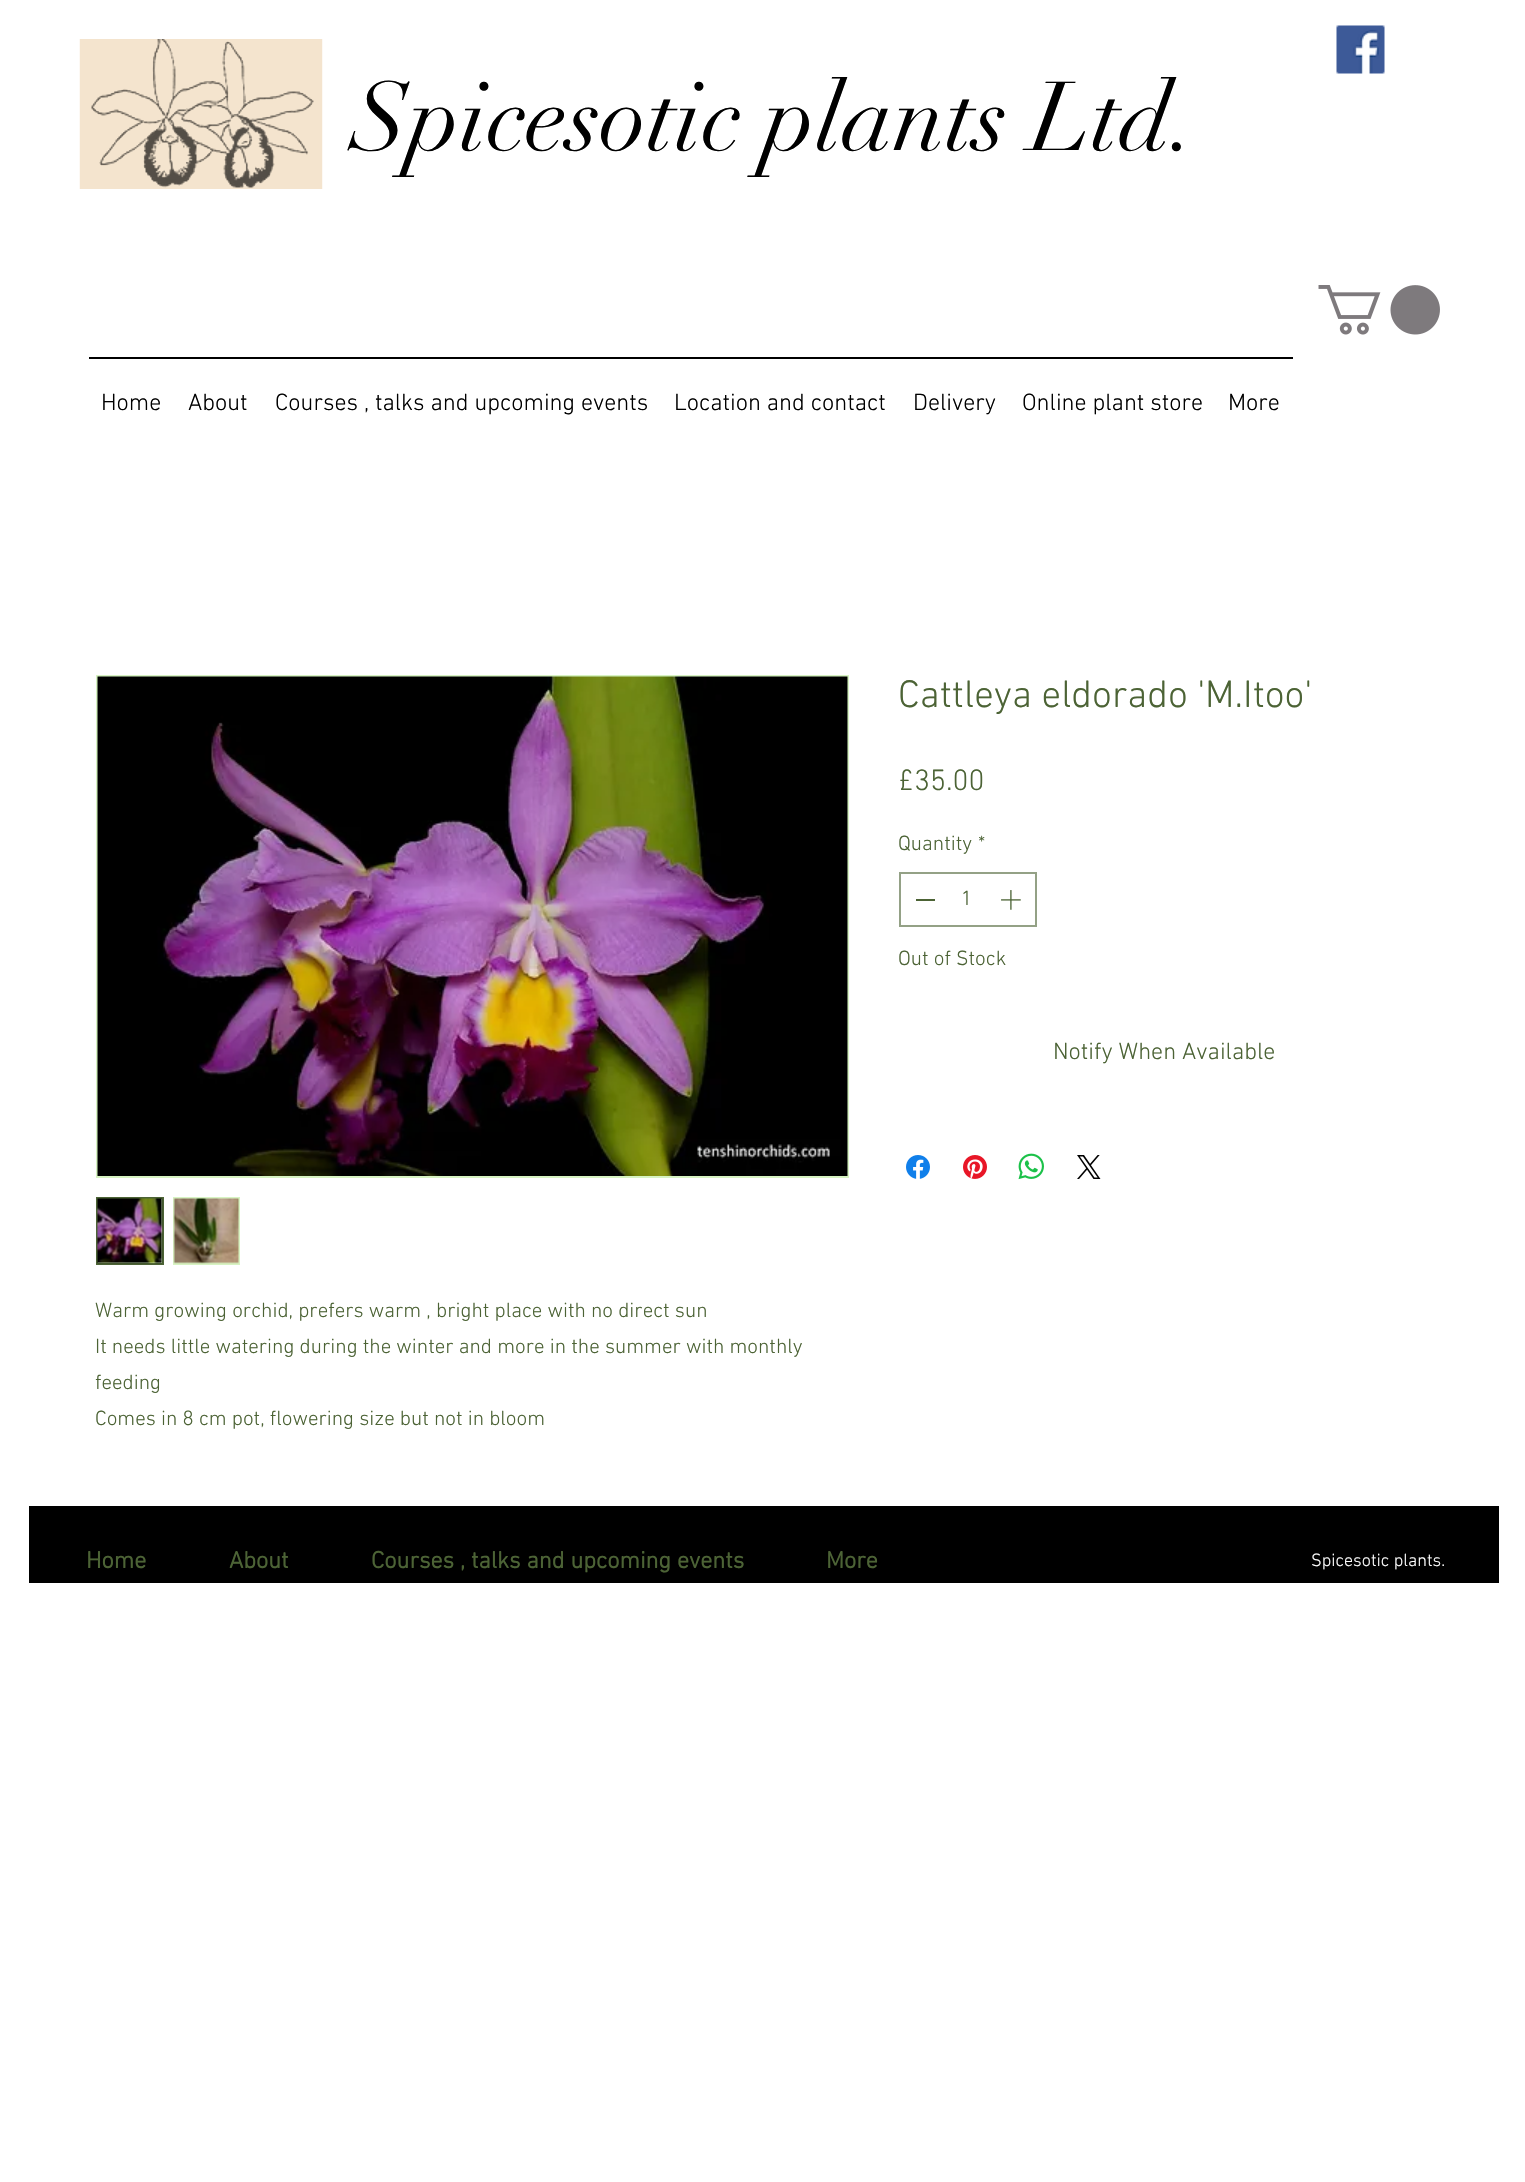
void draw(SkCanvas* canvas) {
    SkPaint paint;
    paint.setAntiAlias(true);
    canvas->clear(0xFFFFFFFF);
    canvas->drawImageRect(SkImages::DeferredFromEncodedData(SkData::MakeFromFileName("img1.png")), SkRect::MakeXYWH(79, 39, 244, 150), SkSamplingOptions());
    SkFont font1(fontMgr->matchFamilyStyle("didot", SkFontStyle::Normal()), 96);
    font1.setSubpixel(true);
    paint.setColor(0xFF000000);
    canvas->drawString("Spicesotic plants Ltd.", 352, 150, font1, paint);
    canvas->drawImageRect(SkImages::DeferredFromEncodedData(SkData::MakeFromFileName("img2.png")), SkRect::MakeXYWH(1336, 25, 49, 49), SkSamplingOptions());
    canvas->drawImageRect(SkImages::DeferredFromEncodedData(SkData::MakeFromFileName("img3.png")), SkRect::MakeXYWH(1318, 285, 122, 50), SkSamplingOptions());
    canvas->drawRect(SkRect::MakeXYWH(89, 357, 1204, 2), paint);
    SkFont font2(fontMgr->matchFamilyStyle("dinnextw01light", SkFontStyle(300, SkFontStyle::kNormal_Width, SkFontStyle::kUpright_Slant)), 24);
    font2.setSubpixel(true);
    canvas->drawString("Home", 101, 410, font2, paint);
    canvas->drawString("About", 188, 410, font2, paint);
    canvas->drawString("Courses , talks and upcoming events", 275, 410, font2, paint);
    canvas->drawString("Location and contact", 674, 410, font2, paint);
    canvas->drawString("Delivery", 913, 410, font2, paint);
    canvas->drawString("Online plant store", 1022, 410, font2, paint);
    canvas->drawString("More", 1228, 410, font2, paint);
    SkFont font3(fontMgr->matchFamilyStyle("dinnextw01light", SkFontStyle(300, SkFontStyle::kNormal_Width, SkFontStyle::kUpright_Slant)), 39);
    font3.setSubpixel(true);
    paint.setColor(0xFF4C6335);
    canvas->drawString("Cattleya eldorado 'M.Itoo'", 898, 707, font3, paint);
    SkFont font4(fontMgr->matchFamilyStyle("dinnextw01light", SkFontStyle(300, SkFontStyle::kNormal_Width, SkFontStyle::kUpright_Slant)), 30);
    font4.setSubpixel(true);
    canvas->drawString("£35.00", 898, 790, font4, paint);
    SkFont font5(fontMgr->matchFamilyStyle("dinnextw01light", SkFontStyle(300, SkFontStyle::kNormal_Width, SkFontStyle::kUpright_Slant)), 21);
    font5.setSubpixel(true);
    canvas->drawString("Quantity", 898, 850, font5, paint);
    canvas->drawString("*", 978, 850, font5, paint);
    paint.setStyle(SkPaint::kStroke_Style);
    paint.setStrokeWidth(2);
    paint.setColor(0xFF94A186);
    canvas->drawRect(SkRect::MakeXYWH(900, 873, 136, 53), paint);
    paint.setStyle(SkPaint::kFill_Style);
    paint.setColor(0xFF4C6335);
    canvas->drawRect(SkRect::MakeXYWH(916, 899, 19, 2), paint);
    canvas->drawString("1", 961, 905, font5, paint);
    canvas->drawImageRect(SkImages::DeferredFromEncodedData(SkData::MakeFromFileName("img4.png")), SkRect::MakeXYWH(1001, 890, 20, 20), SkSamplingOptions());
    canvas->drawString("Out of Stock", 898, 965, font5, paint);
    canvas->drawString("Notify When Available", 1053, 1059, font2, paint);
    canvas->drawImageRect(SkImages::DeferredFromEncodedData(SkData::MakeFromFileName("img5.png")), SkRect::MakeXYWH(906, 1155, 24, 24), SkSamplingOptions());
    canvas->drawImageRect(SkImages::DeferredFromEncodedData(SkData::MakeFromFileName("img6.png")), SkRect::MakeXYWH(963, 1155, 24, 24), SkSamplingOptions());
    canvas->drawImageRect(SkImages::DeferredFromEncodedData(SkData::MakeFromFileName("img7.png")), SkRect::MakeXYWH(1018, 1153, 26, 27), SkSamplingOptions());
    canvas->drawImageRect(SkImages::DeferredFromEncodedData(SkData::MakeFromFileName("img8.png")), SkRect::MakeXYWH(1077, 1155, 24, 24), SkSamplingOptions());
    paint.setStyle(SkPaint::kStroke_Style);
    paint.setColor(0xFFD7F3C2);
    canvas->drawRect(SkRect::MakeXYWH(97, 676, 751, 501), paint);
    canvas->drawImageRect(SkImages::DeferredFromEncodedData(SkData::MakeFromFileName("img9.png")), SkRect::MakeXYWH(97, 676, 751, 500), SkSamplingOptions());
    paint.setStyle(SkPaint::kFill_Style);
    canvas->drawRect(SkRect::MakeXYWH(97, 1198, 66, 66), paint);
    paint.setStyle(SkPaint::kStroke_Style);
    paint.setColor(0xFF4C6335);
    canvas->drawRect(SkRect::MakeXYWH(97, 1198, 66, 66), paint);
    canvas->drawImageRect(SkImages::DeferredFromEncodedData(SkData::MakeFromFileName("img10.png")), SkRect::MakeXYWH(97, 1198, 66, 66), SkSamplingOptions());
    paint.setStyle(SkPaint::kFill_Style);
    paint.setColor(0xFFD7F3C2);
    canvas->drawRect(SkRect::MakeXYWH(173, 1197, 67, 68), paint);
    canvas->drawImageRect(SkImages::DeferredFromEncodedData(SkData::MakeFromFileName("img11.png")), SkRect::MakeXYWH(173, 1198, 66, 66), SkSamplingOptions());
    paint.setColor(0xFF4C6335);
    canvas->drawString("Warm growing orchid, prefers warm , bright place with no direct sun", 95, 1317, font5, paint);
    canvas->drawString("It needs little watering during the winter and more in the summer with monthly", 95, 1353, font5, paint);
    canvas->drawString("feeding", 95, 1389, font5, paint);
    canvas->drawString("Comes in 8 cm pot, flowering size but not in bloom", 95, 1425, font5, paint);
    paint.setColor(0xFF000000);
    canvas->drawRect(SkRect::MakeXYWH(29, 1506, 1470, 77), paint);
    SkFont font6(fontMgr->matchFamilyStyle("dinnextw01light", SkFontStyle::Bold()), 24);
    font6.setSubpixel(true);
    paint.setColor(0xFF4C6335);
    canvas->drawString("Home", 86, 1568, font6, paint);
    canvas->drawString("About", 229, 1568, font6, paint);
    canvas->drawString("Courses , talks and upcoming events", 371, 1568, font6, paint);
    canvas->drawString("More", 826, 1568, font6, paint);
    SkFont font7(fontMgr->matchFamilyStyle("dinnextw01light", SkFontStyle(300, SkFontStyle::kNormal_Width, SkFontStyle::kUpright_Slant)), 18);
    font7.setSubpixel(true);
    paint.setColor(0xFFFFFFFF);
    canvas->drawString("Spicesotic plants.", 1311, 1566, font7, paint);
}
